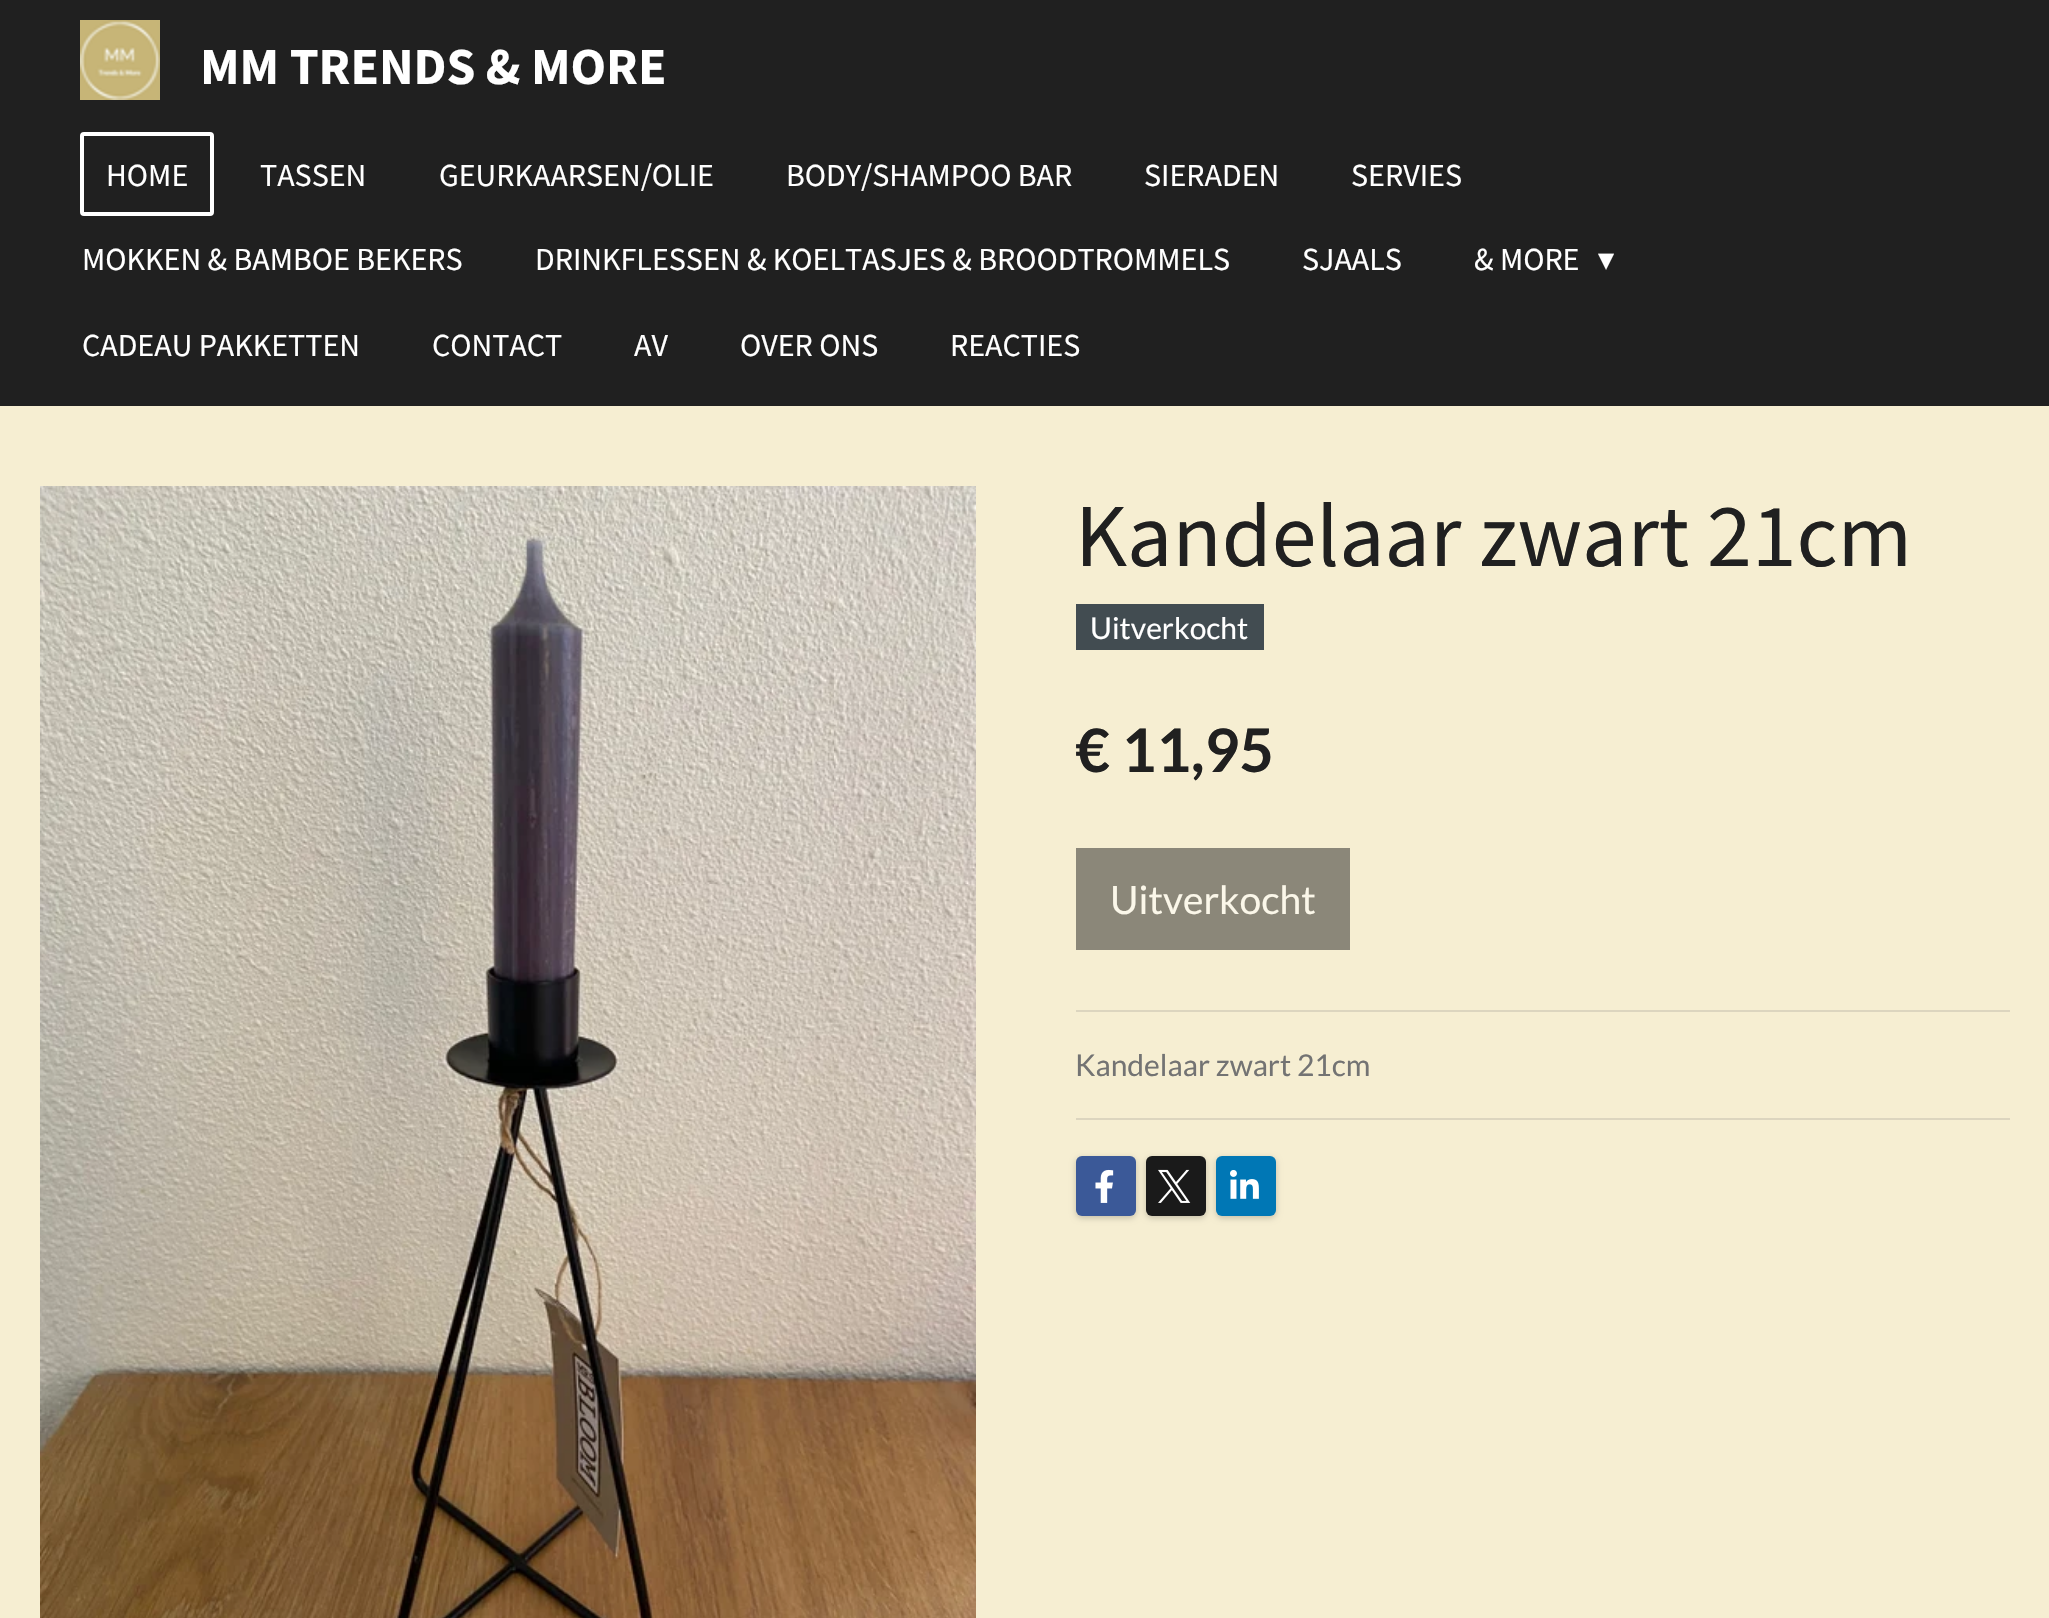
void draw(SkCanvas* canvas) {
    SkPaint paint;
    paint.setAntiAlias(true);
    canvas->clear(0xFFF6EED2);
    paint.setColor(0xFF202020);
    canvas->drawRect(SkRect::MakeXYWH(0, 0, 2049, 406), paint);
    canvas->drawImageRect(SkImages::DeferredFromEncodedData(SkData::MakeFromFileName("img1.png")), SkRect::MakeXYWH(80, 20, 80, 80), SkSamplingOptions());
    SkFont font1(fontMgr->matchFamilyStyle("Source Sans Pro", SkFontStyle::Bold()), 52);
    font1.setSubpixel(true);
    paint.setColor(0xFFFFFFFF);
    canvas->drawString("MM TRENDS & MORE", 200, 84, font1, paint);
    paint.setStyle(SkPaint::kStroke_Style);
    paint.setStrokeWidth(4);
    canvas->drawRoundRect(SkRect::MakeXYWH(82, 134, 130, 80), 2, 2, paint);
    SkFont font2(fontMgr->matchFamilyStyle("Source Sans Pro", SkFontStyle::Normal()), 32);
    font2.setSubpixel(true);
    paint.setStyle(SkPaint::kFill_Style);
    canvas->drawString("HOME", 106, 186, font2, paint);
    canvas->drawString("TASSEN", 260, 186, font2, paint);
    canvas->drawString("GEURKAARSEN/OLIE", 439, 186, font2, paint);
    canvas->drawString("BODY/SHAMPOO BAR", 786, 186, font2, paint);
    canvas->drawString("SIERADEN", 1144, 186, font2, paint);
    canvas->drawString("SERVIES", 1351, 186, font2, paint);
    canvas->drawString("MOKKEN & BAMBOE BEKERS", 82, 270, font2, paint);
    canvas->drawString("DRINKFLESSEN & KOELTASJES & BROODTROMMELS", 535, 270, font2, paint);
    canvas->drawString("SJAALS", 1302, 270, font2, paint);
    canvas->drawString("& MORE", 1474, 270, font2, paint);
    SkFont font3(fontMgr->matchFamilyStyle("DejaVu Sans", SkFontStyle::Normal()), 32);
    font3.setSubpixel(true);
    canvas->drawString("▾", 1598, 270, font3, paint);
    canvas->drawString("CADEAU PAKKETTEN", 82, 356, font2, paint);
    canvas->drawString("CONTACT", 432, 356, font2, paint);
    canvas->drawString("AV", 634, 356, font2, paint);
    canvas->drawString("OVER ONS", 740, 356, font2, paint);
    canvas->drawString("REACTIES", 950, 356, font2, paint);
    canvas->drawImageRect(SkImages::DeferredFromEncodedData(SkData::MakeFromFileName("img2.png")), SkRect::MakeXYWH(40, 486, 936, 1132), SkSamplingOptions());
    SkFont font4(fontMgr->matchFamilyStyle("Source Sans Pro", SkFontStyle::Normal()), 90);
    font4.setSubpixel(true);
    paint.setColor(0xFF202020);
    canvas->drawString("Kandelaar zwart 21cm", 1075, 566, font4, paint);
    paint.setColor(0xFF424C51);
    canvas->drawRect(SkRect::MakeXYWH(1076, 604, 188, 46), paint);
    SkFont font5(fontMgr->matchFamilyStyle("Lato", SkFontStyle::Normal()), 30);
    font5.setSubpixel(true);
    paint.setColor(0xFFFFFFFF);
    canvas->drawString("Uitverkocht", 1090, 639, font5, paint);
    SkFont font6(fontMgr->matchFamilyStyle("Lato", SkFontStyle::Bold()), 60);
    font6.setSubpixel(true);
    paint.setColor(0xFF202020);
    canvas->drawString("€ 11,95", 1075, 772, font6, paint);
    paint.setColor(0xFF8B8779);
    canvas->drawRect(SkRect::MakeXYWH(1076, 848, 274, 102), paint);
    SkFont font7(fontMgr->matchFamilyStyle("Lato", SkFontStyle::Normal()), 39);
    font7.setSubpixel(true);
    paint.setColor(0xFFFBF7E9);
    canvas->drawString("Uitverkocht", 1110, 914, font7, paint);
    paint.setColor(0xFFDCD5BF);
    canvas->drawRect(SkRect::MakeXYWH(1076, 1010, 934, 2), paint);
    paint.setColor(0xFF737373);
    canvas->drawString("Kandelaar zwart 21cm", 1075, 1076, font5, paint);
    paint.setColor(0xFFDCD5BF);
    canvas->drawRect(SkRect::MakeXYWH(1076, 1118, 934, 2), paint);
    paint.setColor(0x33000000);
    paint.setMaskFilter(SkMaskFilter::MakeBlur(kNormal_SkBlurStyle, 3));
    canvas->drawRoundRect(SkRect::MakeXYWH(1076, 1158, 60, 60), 6, 6, paint);
    paint.setMaskFilter(nullptr);
    paint.setColor(0xFF3B5998);
    canvas->drawRoundRect(SkRect::MakeXYWH(1076, 1156, 60, 60), 6, 6, paint);
    canvas->drawImageRect(SkImages::DeferredFromEncodedData(SkData::MakeFromFileName("img3.png")), SkRect::MakeXYWH(1095, 1169, 19, 34), SkSamplingOptions());
    paint.setColor(0x33000000);
    paint.setMaskFilter(SkMaskFilter::MakeBlur(kNormal_SkBlurStyle, 3));
    canvas->drawRoundRect(SkRect::MakeXYWH(1146, 1158, 60, 60), 6, 6, paint);
    paint.setMaskFilter(nullptr);
    paint.setColor(0xFF1A1A1A);
    canvas->drawRoundRect(SkRect::MakeXYWH(1146, 1156, 60, 60), 6, 6, paint);
    canvas->drawImageRect(SkImages::DeferredFromEncodedData(SkData::MakeFromFileName("img4.png")), SkRect::MakeXYWH(1158, 1169, 33, 34), SkSamplingOptions());
    paint.setColor(0x33000000);
    paint.setMaskFilter(SkMaskFilter::MakeBlur(kNormal_SkBlurStyle, 3));
    canvas->drawRoundRect(SkRect::MakeXYWH(1216, 1158, 60, 60), 6, 6, paint);
    paint.setMaskFilter(nullptr);
    paint.setColor(0xFF0077B5);
    canvas->drawRoundRect(SkRect::MakeXYWH(1216, 1156, 60, 60), 6, 6, paint);
    canvas->drawImageRect(SkImages::DeferredFromEncodedData(SkData::MakeFromFileName("img5.png")), SkRect::MakeXYWH(1230, 1170, 29, 29), SkSamplingOptions());
}
